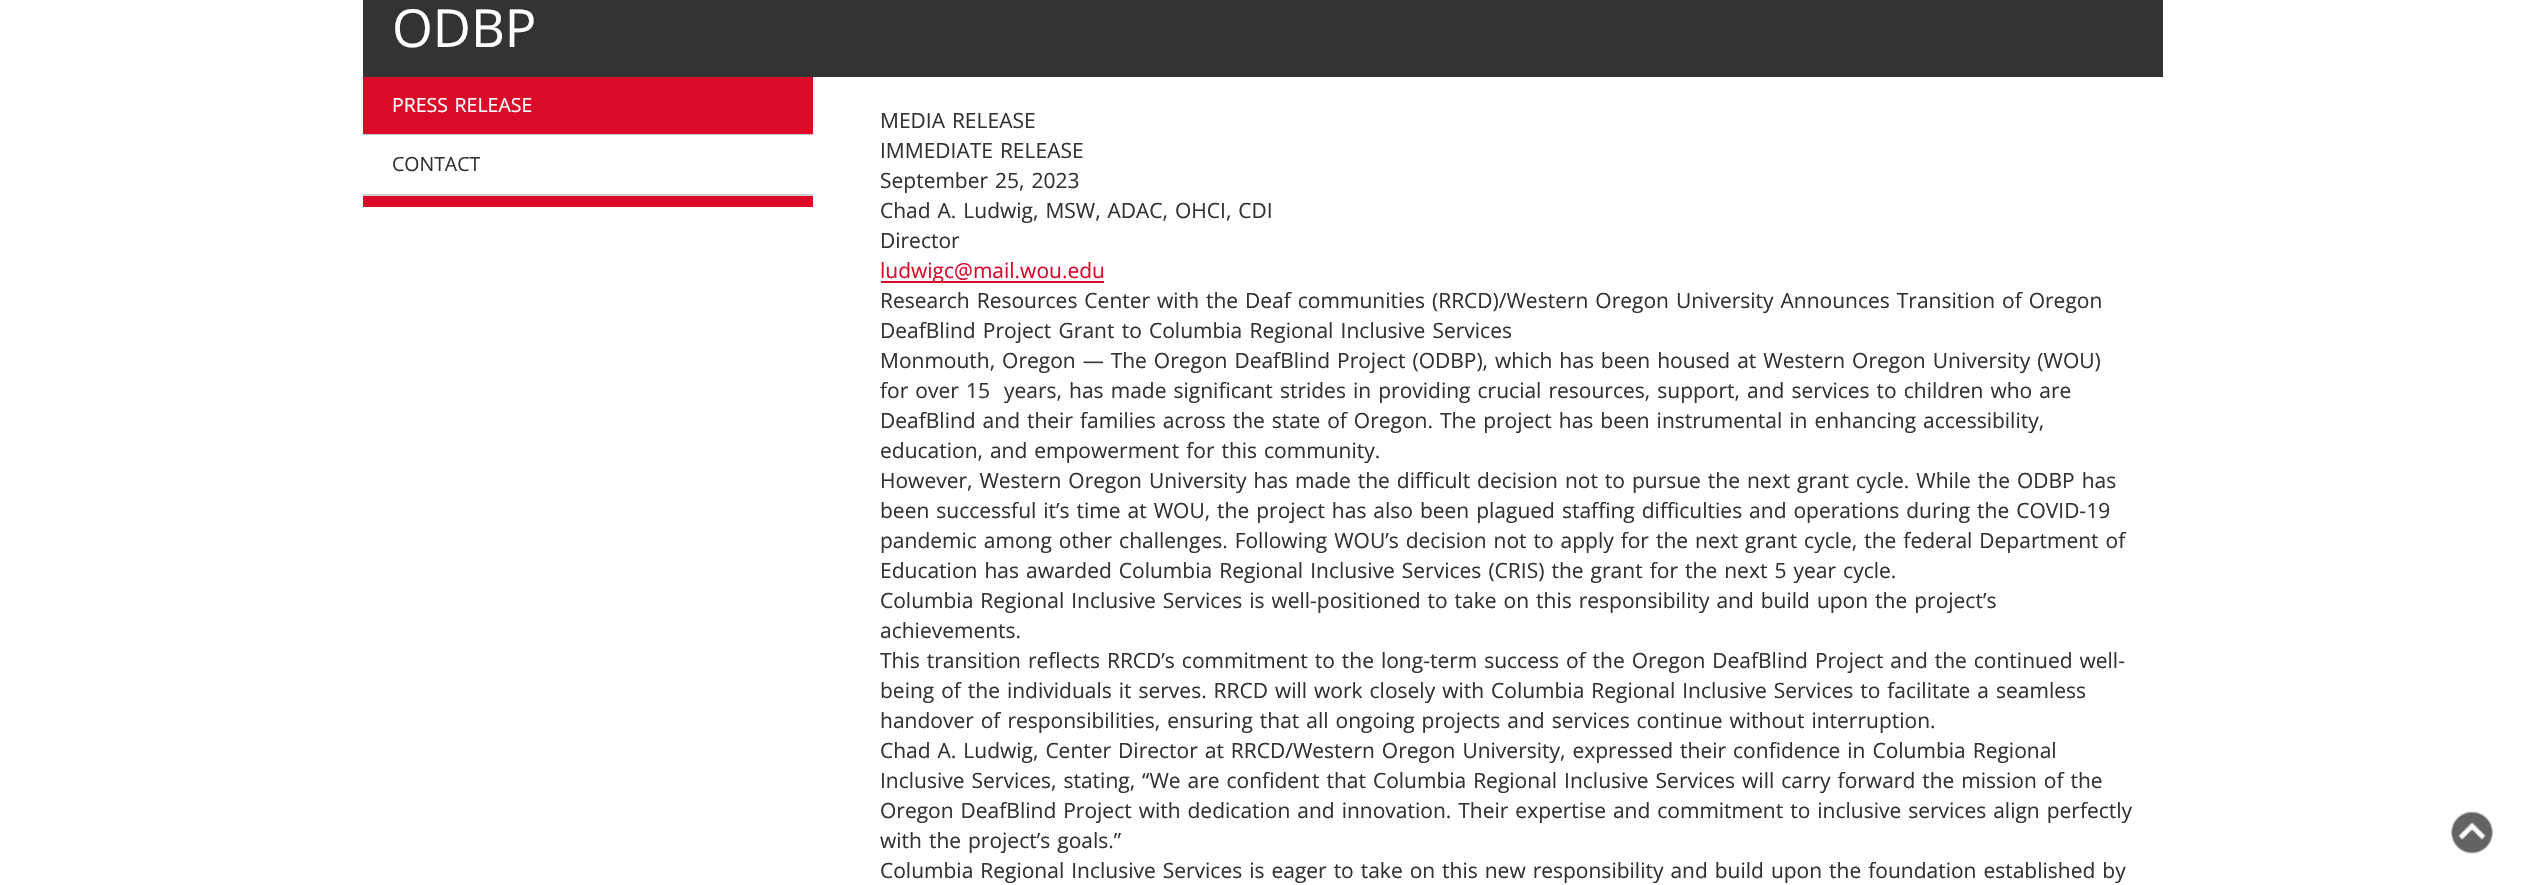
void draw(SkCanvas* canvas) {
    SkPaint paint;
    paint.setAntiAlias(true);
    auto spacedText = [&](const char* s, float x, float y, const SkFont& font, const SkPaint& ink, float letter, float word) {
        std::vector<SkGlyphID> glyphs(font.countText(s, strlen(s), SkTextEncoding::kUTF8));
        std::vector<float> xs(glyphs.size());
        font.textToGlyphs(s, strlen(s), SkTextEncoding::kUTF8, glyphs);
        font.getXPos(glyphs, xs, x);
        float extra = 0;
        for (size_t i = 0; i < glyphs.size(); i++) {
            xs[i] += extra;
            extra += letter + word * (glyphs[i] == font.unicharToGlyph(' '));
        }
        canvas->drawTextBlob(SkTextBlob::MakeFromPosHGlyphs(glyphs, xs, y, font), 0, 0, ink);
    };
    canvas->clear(0xFFFFFFFF);
    paint.setColor(0xFF333333);
    canvas->drawRect(SkRect::MakeXYWH(363, 0, 1800, 77), paint);
    SkFont font1(fontMgr->matchFamilyStyle("Open Sans", SkFontStyle::Normal()), 52.5f);
    font1.setSubpixel(true);
    paint.setColor(0xFFFFFFFF);
    canvas->drawString("ODBP", 392, 47, font1, paint);
    paint.setColor(0xFFDB0A29);
    canvas->drawRect(SkRect::MakeXYWH(363, 196, 450, 11), paint);
    canvas->drawRect(SkRect::MakeXYWH(363, 77, 450, 57), paint);
    paint.setColor(0xFFCCCCCC);
    canvas->drawRect(SkRect::MakeXYWH(363, 134, 450, 1), paint);
    SkFont font2(fontMgr->matchFamilyStyle("Open Sans", SkFontStyle::Normal()), 19.5f);
    font2.setSubpixel(true);
    paint.setColor(0xFFFFFFFF);
    spacedText("PRESS RELEASE", 392, 112, font2, paint, 0, 1.5f);
    paint.setColor(0xFFCCCCCC);
    canvas->drawRect(SkRect::MakeXYWH(363, 194, 450, 2), paint);
    paint.setColor(0xFF333333);
    canvas->drawString("CONTACT", 392, 171, font2, paint);
    SkFont font3(fontMgr->matchFamilyStyle("Open Sans", SkFontStyle::Normal()), 21);
    font3.setSubpixel(true);
    spacedText("MEDIA RELEASE", 880, 128, font3, paint, 0, 1.5f);
    spacedText("IMMEDIATE RELEASE", 880, 158, font3, paint, 0, 1.5f);
    spacedText("September 25, 2023", 880, 188, font3, paint, 0, 1.5f);
    spacedText("Chad A. Ludwig, MSW, ADAC, OHCI, CDI", 880, 218, font3, paint, 0, 1.5f);
    canvas->drawString("Director", 880, 248, font3, paint);
    paint.setColor(0xFFDB0A29);
    canvas->drawRect(SkRect::MakeXYWH(881, 281, 223, 2), paint);
    canvas->drawString("ludwigc@mail.wou.edu", 880, 278, font3, paint);
    paint.setColor(0xFF333333);
    spacedText("Research Resources Center with the Deaf communities (RRCD)/Western Oregon University Announces Transition of Oregon", 880, 308, font3, paint, 0, 1.5f);
    spacedText("DeafBlind Project Grant to Columbia Regional Inclusive Services", 880, 338, font3, paint, 0, 1.75f);
    spacedText("Monmouth, Oregon — The Oregon DeafBlind Project (ODBP), which has been housed at Western Oregon University (WOU)", 880, 368, font3, paint, 0, 1.5f);
    spacedText("for over 15  years, has made significant strides in providing crucial resources, support, and services to children who are", 880, 398, font3, paint, 0, 1.6f);
    spacedText("DeafBlind and their families across the state of Oregon. The project has been instrumental in enhancing accessibility,", 880, 428, font3, paint, 0, 1.5f);
    spacedText("education, and empowerment for this community.", 880, 458, font3, paint, 0, 1.5f);
    spacedText("However, Western Oregon University has made the difficult decision not to pursue the next grant cycle. While the ODBP has", 880, 488, font3, paint, 0, 1.5f);
    spacedText("been successful it’s time at WOU, the project has also been plagued staffing difficulties and operations during the COVID-19", 880, 518, font3, paint, 0, 1.5f);
    spacedText("pandemic among other challenges. Following WOU’s decision not to apply for the next grant cycle, the federal Department of", 880, 548, font3, paint, 0, 1.5f);
    spacedText("Education has awarded Columbia Regional Inclusive Services (CRIS) the grant for the next 5 year cycle.", 880, 578, font3, paint, 0, 1.6f);
    spacedText("Columbia Regional Inclusive Services is well-positioned to take on this responsibility and build upon the project’s", 880, 608, font3, paint, 0, 1.5f);
    canvas->drawString("achievements.", 880, 638, font3, paint);
    spacedText("This transition reflects RRCD’s commitment to the long-term success of the Oregon DeafBlind Project and the continued well-", 880, 668, font3, paint, 0, 1.5f);
    spacedText("being of the individuals it serves. RRCD will work closely with Columbia Regional Inclusive Services to facilitate a seamless", 880, 698, font3, paint, 0, 1.5f);
    spacedText("handover of responsibilities, ensuring that all ongoing projects and services continue without interruption.", 880, 728, font3, paint, 0, 1.5f);
    spacedText("Chad A. Ludwig, Center Director at RRCD/Western Oregon University, expressed their confidence in Columbia Regional", 880, 758, font3, paint, 0, 1.5f);
    spacedText("Inclusive Services, stating, “We are confident that Columbia Regional Inclusive Services will carry forward the mission of the", 880, 788, font3, paint, 0, 1.5f);
    spacedText("Oregon DeafBlind Project with dedication and innovation. Their expertise and commitment to inclusive services align perfectly", 880, 818, font3, paint, 0, 1.5f);
    spacedText("with the project’s goals.”", 880, 848, font3, paint, 0, 1.5f);
    spacedText("Columbia Regional Inclusive Services is eager to take on this new responsibility and build upon the foundation established by", 880, 878, font3, paint, 0, 1.5f);
    canvas->drawImageRect(SkImages::DeferredFromEncodedData(SkData::MakeFromFileName("img1.png")), SkRect::MakeXYWH(2450, 811, 44, 44), SkSamplingOptions());
}
